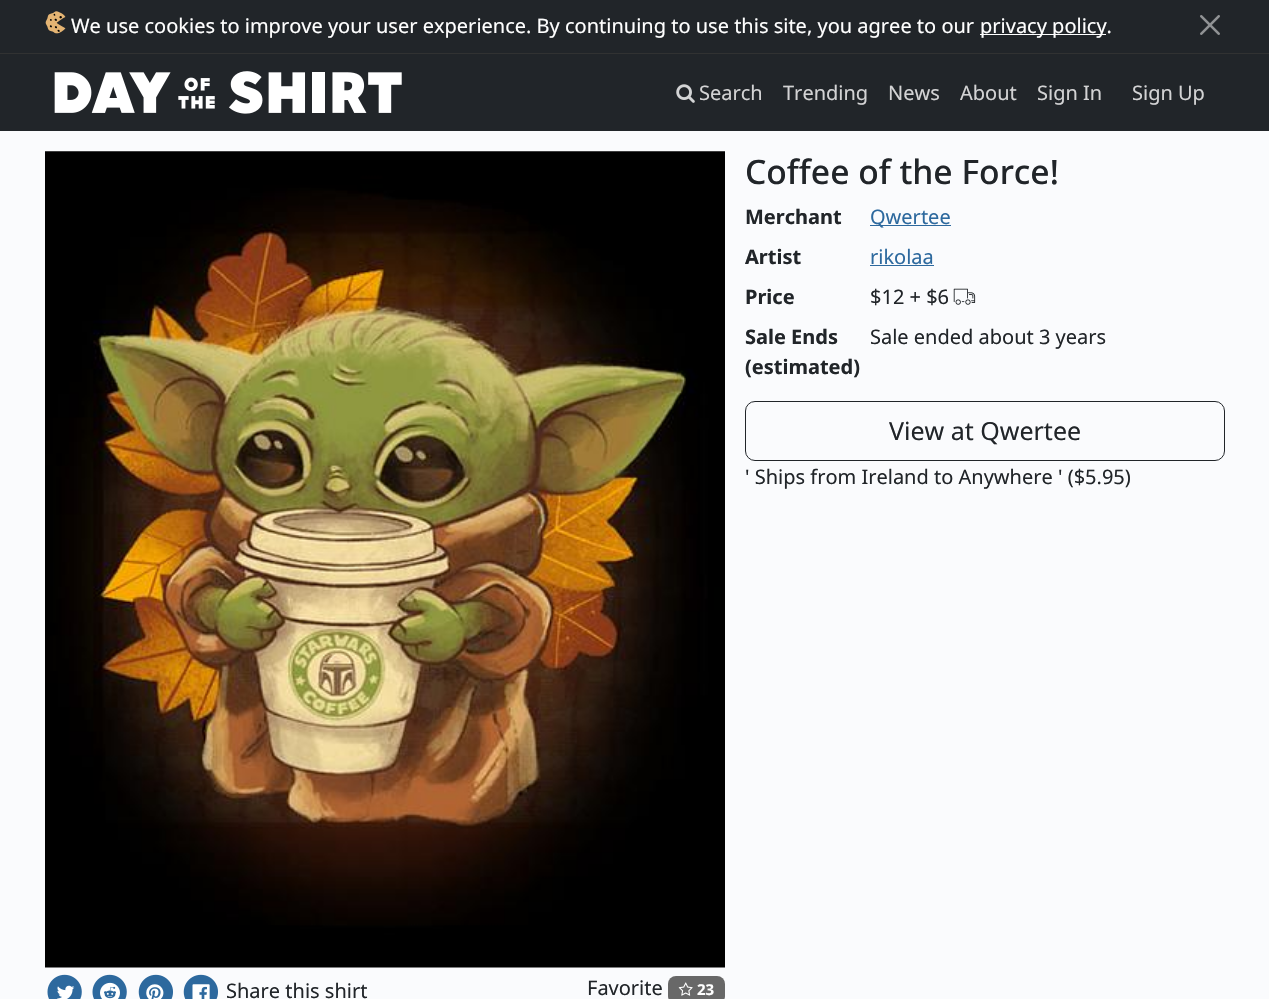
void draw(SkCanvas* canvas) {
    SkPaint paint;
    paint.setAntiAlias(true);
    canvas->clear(0xFFFAFBFD);
    paint.setColor(0xFF212529);
    canvas->drawRect(SkRect::MakeXYWH(0, 0, 1269, 53), paint);
    paint.setColor(0xFF313232);
    canvas->drawRect(SkRect::MakeXYWH(0, 53, 1269, 1), paint);
    canvas->drawImageRect(SkImages::DeferredFromEncodedData(SkData::MakeFromFileName("img1.png")), SkRect::MakeXYWH(45, 11, 21, 23), SkSamplingOptions());
    SkFont font1(fontMgr->matchFamilyStyle("Noto Sans", SkFontStyle::Normal()), 20);
    font1.setSubpixel(true);
    paint.setColor(0xFFFFFFFF);
    canvas->drawString("We use cookies to improve your user experience. By continuing to use this site, you agree to our", 71, 33, font1, paint);
    canvas->drawRect(SkRect::MakeXYWH(980, 34, 126, 1), paint);
    canvas->drawString("privacy policy.", 980, 33, font1, paint);
    canvas->drawImageRect(SkImages::DeferredFromEncodedData(SkData::MakeFromFileName("img2.png")), SkRect::MakeXYWH(1200, 15, 20, 20), SkSamplingOptions());
    paint.setColor(0xFF212529);
    canvas->drawRect(SkRect::MakeXYWH(0, 54, 1269, 77), paint);
    canvas->drawImageRect(SkImages::DeferredFromEncodedData(SkData::MakeFromFileName("img3.png")), SkRect::MakeXYWH(54, 71, 348, 43), SkSamplingOptions());
    canvas->drawImageRect(SkImages::DeferredFromEncodedData(SkData::MakeFromFileName("img4.png")), SkRect::MakeXYWH(676, 84, 19, 19), SkSamplingOptions());
    paint.setColor(0xFFD3D3D4);
    canvas->drawString("Search", 699, 100, font1, paint);
    canvas->drawString("Trending", 783, 100, font1, paint);
    canvas->drawString("News", 888, 100, font1, paint);
    canvas->drawString("About", 960, 100, font1, paint);
    canvas->drawString("Sign In", 1037, 100, font1, paint);
    canvas->drawString("Sign Up", 1132, 100, font1, paint);
    SkFont font2(fontMgr->matchFamilyStyle("Noto Sans", SkFontStyle(500, SkFontStyle::kNormal_Width, SkFontStyle::kUpright_Slant)), 33.6f);
    font2.setSubpixel(true);
    paint.setColor(0xFF212529);
    canvas->drawString("Coffee of the Force!", 745, 184, font2, paint);
    SkFont font3(fontMgr->matchFamilyStyle("Noto Sans", SkFontStyle::Bold()), 20);
    font3.setSubpixel(true);
    canvas->drawString("Merchant", 745, 224, font3, paint);
    paint.setColor(0xFF2D699E);
    canvas->drawRect(SkRect::MakeXYWH(870, 225, 81, 1), paint);
    canvas->drawString("Qwertee", 870, 224, font1, paint);
    paint.setColor(0xFF212529);
    canvas->drawString("Artist", 745, 264, font3, paint);
    paint.setColor(0xFF2D699E);
    canvas->drawString("rikolaa", 870, 264, font1, paint);
    canvas->drawRect(SkRect::MakeXYWH(870, 265, 64, 1), paint);
    paint.setColor(0xFF212529);
    canvas->drawString("Price", 745, 304, font3, paint);
    canvas->drawString("$12 + $6", 870, 304, font1, paint);
    canvas->drawImageRect(SkImages::DeferredFromEncodedData(SkData::MakeFromFileName("img5.png")), SkRect::MakeXYWH(953, 288, 23, 17), SkSamplingOptions());
    canvas->drawString("Sale Ends", 745, 344, font3, paint);
    canvas->drawString("(estimated)", 745, 374, font3, paint);
    canvas->drawString("Sale ended about 3 years", 870, 344, font1, paint);
    paint.setStyle(SkPaint::kStroke_Style);
    paint.setStrokeWidth(1);
    canvas->drawRoundRect(SkRect::MakeXYWH(745.5f, 401.5f, 479, 59), 9.5f, 9.5f, paint);
    SkFont font4(fontMgr->matchFamilyStyle("Noto Sans", SkFontStyle::Normal()), 25);
    font4.setSubpixel(true);
    paint.setStyle(SkPaint::kFill_Style);
    canvas->drawString("View at Qwertee", 889, 440, font4, paint);
    canvas->drawString("' Ships from Ireland to Anywhere ' ($5.95)", 745, 484, font1, paint);
    canvas->drawImageRect(SkImages::DeferredFromEncodedData(SkData::MakeFromFileName("img6.png")), SkRect::MakeXYWH(45, 151, 680, 817), SkSamplingOptions());
    canvas->drawImageRect(SkImages::DeferredFromEncodedData(SkData::MakeFromFileName("img7.png")), SkRect::MakeXYWH(47, 974, 35, 25), SkSamplingOptions());
    canvas->drawImageRect(SkImages::DeferredFromEncodedData(SkData::MakeFromFileName("img8.png")), SkRect::MakeXYWH(57, 985, 18, 14), SkSamplingOptions());
    canvas->drawImageRect(SkImages::DeferredFromEncodedData(SkData::MakeFromFileName("img7.png")), SkRect::MakeXYWH(92, 974, 35, 25), SkSamplingOptions());
    canvas->drawImageRect(SkImages::DeferredFromEncodedData(SkData::MakeFromFileName("img9.png")), SkRect::MakeXYWH(100, 982, 20, 17), SkSamplingOptions());
    canvas->drawImageRect(SkImages::DeferredFromEncodedData(SkData::MakeFromFileName("img10.png")), SkRect::MakeXYWH(138, 974, 35, 25), SkSamplingOptions());
    canvas->drawImageRect(SkImages::DeferredFromEncodedData(SkData::MakeFromFileName("img11.png")), SkRect::MakeXYWH(146, 984, 18, 15), SkSamplingOptions());
    canvas->drawImageRect(SkImages::DeferredFromEncodedData(SkData::MakeFromFileName("img10.png")), SkRect::MakeXYWH(183, 974, 35, 25), SkSamplingOptions());
    canvas->drawImageRect(SkImages::DeferredFromEncodedData(SkData::MakeFromFileName("img12.png")), SkRect::MakeXYWH(192, 984, 18, 15), SkSamplingOptions());
    canvas->drawString("Share this shirt", 226, 998, font1, paint);
    canvas->drawString("Favorite", 587, 995, font1, paint);
    paint.setColor(0xFF686868);
    canvas->drawRoundRect(SkRect::MakeXYWH(668, 976, 57, 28), 8, 8, paint);
    canvas->drawImageRect(SkImages::DeferredFromEncodedData(SkData::MakeFromFileName("img13.png")), SkRect::MakeXYWH(678, 982, 15, 14), SkSamplingOptions());
    SkFont font5(fontMgr->matchFamilyStyle("Noto Sans", SkFontStyle::Bold()), 15);
    font5.setSubpixel(true);
    paint.setColor(0xFFFFFFFF);
    canvas->drawString("23", 697, 995, font5, paint);
}
